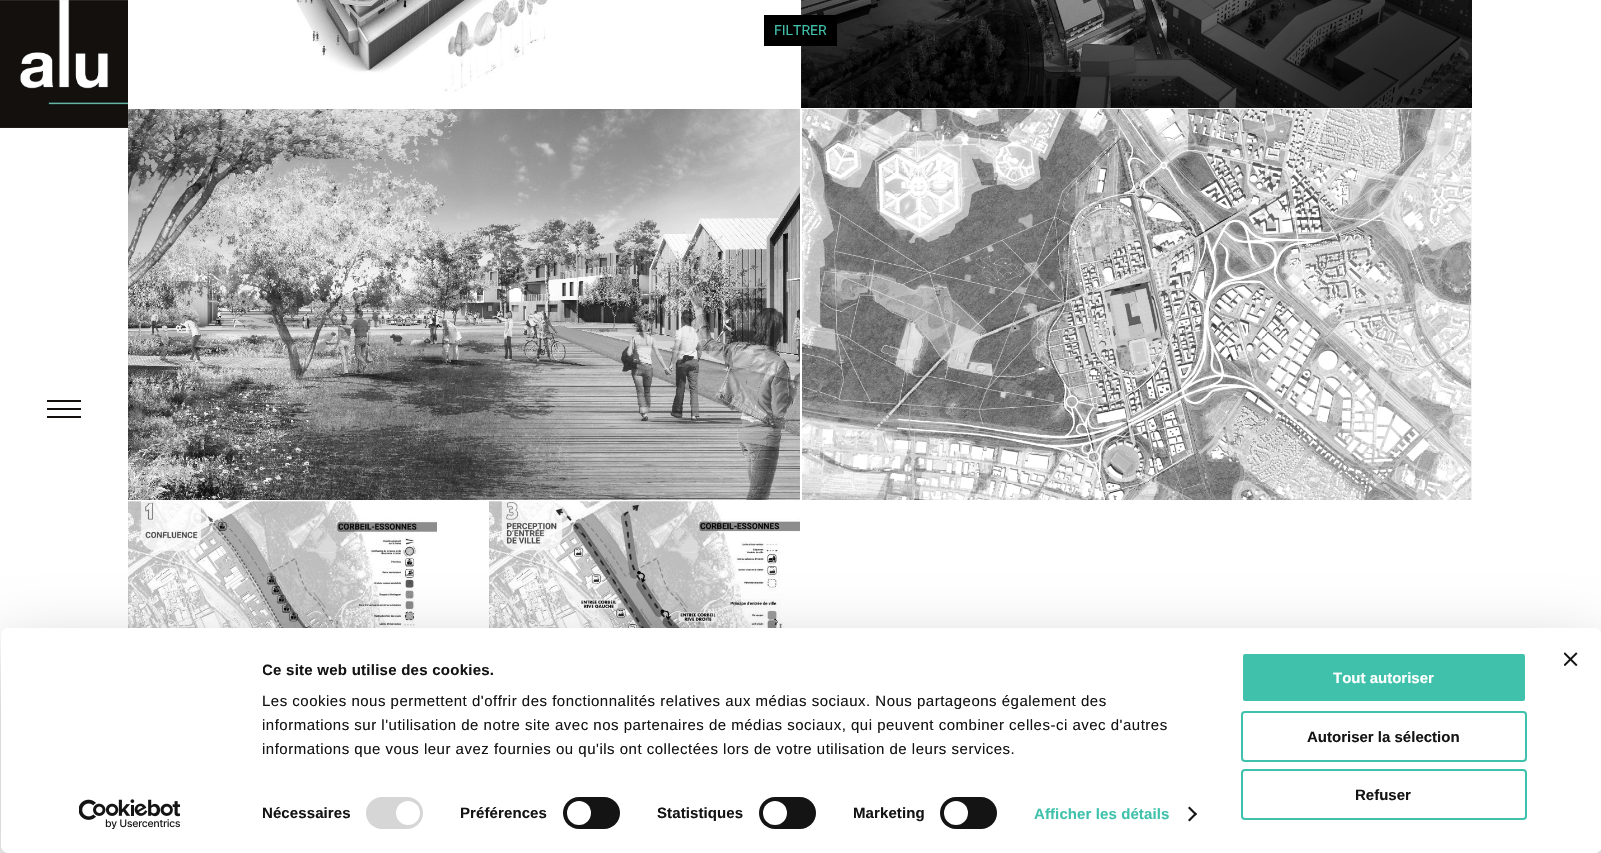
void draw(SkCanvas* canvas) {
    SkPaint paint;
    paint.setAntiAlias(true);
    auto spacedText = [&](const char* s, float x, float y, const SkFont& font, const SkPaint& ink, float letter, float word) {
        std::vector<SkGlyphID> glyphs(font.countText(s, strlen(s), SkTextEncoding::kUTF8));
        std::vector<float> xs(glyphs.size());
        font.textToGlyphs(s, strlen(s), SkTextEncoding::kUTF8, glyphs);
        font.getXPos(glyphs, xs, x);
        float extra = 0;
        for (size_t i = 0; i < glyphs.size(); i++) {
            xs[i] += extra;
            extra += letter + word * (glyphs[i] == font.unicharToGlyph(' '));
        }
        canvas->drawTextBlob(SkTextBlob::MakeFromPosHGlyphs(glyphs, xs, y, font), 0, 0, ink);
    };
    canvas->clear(0xFFFFFFFF);
    canvas->drawImageRect(SkImages::DeferredFromEncodedData(SkData::MakeFromFileName("img1.png")), SkRect::MakeXYWH(0, 0, 128, 128), SkSamplingOptions());
    paint.setColor(0xFF13100E);
    canvas->drawRect(SkRect::MakeXYWH(47, 408, 34, 2), paint);
    canvas->drawRect(SkRect::MakeXYWH(47, 400, 34, 2), paint);
    canvas->drawRect(SkRect::MakeXYWH(47, 416, 34, 2), paint);
    canvas->drawImageRect(SkImages::DeferredFromEncodedData(SkData::MakeFromFileName("img2.png")), SkRect::MakeXYWH(296, 0, 253, 92), SkSamplingOptions());
    canvas->drawImageRect(SkImages::DeferredFromEncodedData(SkData::MakeFromFileName("img3.png")), SkRect::MakeXYWH(801, 0, 671, 108), SkSamplingOptions());
    canvas->drawImageRect(SkImages::DeferredFromEncodedData(SkData::MakeFromFileName("img4.png")), SkRect::MakeXYWH(128, 109, 672, 391), SkSamplingOptions());
    canvas->drawImageRect(SkImages::DeferredFromEncodedData(SkData::MakeFromFileName("img5.png")), SkRect::MakeXYWH(802, 109, 670, 391), SkSamplingOptions());
    canvas->drawImageRect(SkImages::DeferredFromEncodedData(SkData::MakeFromFileName("img6.png")), SkRect::MakeXYWH(128, 501, 672, 127), SkSamplingOptions());
    paint.setColor(0xFF000000);
    canvas->drawRect(SkRect::MakeXYWH(764, 15, 73, 31), paint);
    SkFont font1(fontMgr->matchFamilyStyle("Roboto", SkFontStyle::Normal()), 14);
    font1.setSubpixel(true);
    paint.setColor(0xFF40C1AC);
    canvas->drawString("FILTRER", 774, 35, font1, paint);
    canvas->save();
    canvas->clipPath(SkPathBuilder(SkPathFillType::kEvenOdd).moveTo(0, 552).lineTo(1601, 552).lineTo(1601, 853).lineTo(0, 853).close().moveTo(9, 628).lineTo(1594, 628).cubicTo(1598.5f, 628, 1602, 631.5f, 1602, 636).lineTo(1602, 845).cubicTo(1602, 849.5f, 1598.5f, 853, 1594, 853).lineTo(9, 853).cubicTo(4.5f, 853, 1, 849.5f, 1, 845).lineTo(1, 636).cubicTo(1, 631.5f, 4.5f, 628, 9, 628).close().detach(), true);
    paint.setColor(0x4D000000);
    paint.setMaskFilter(SkMaskFilter::MakeBlur(kNormal_SkBlurStyle, 35));
    canvas->drawRoundRect(SkRect::MakeXYWH(1, 658, 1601, 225), 8, 8, paint);
    paint.setMaskFilter(nullptr);
    canvas->restore();
    paint.setColor(0xFFFFFFFF);
    canvas->drawRoundRect(SkRect::MakeXYWH(1, 628, 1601, 225), 8, 8, paint);
    canvas->drawImageRect(SkImages::DeferredFromEncodedData(SkData::MakeFromFileName("img7.png")), SkRect::MakeXYWH(1564, 652, 14, 14), SkSamplingOptions());
    canvas->save();
    canvas->clipRect(SkRect::MakeXYWH(263, 658, 949, 103));
    SkFont font2(fontMgr->matchFamilyStyle("Liberation Sans", SkFontStyle::Bold()), 15);
    font2.setSubpixel(true);
    paint.setColor(0xFF141414);
    spacedText("Ce site web utilise des cookies.", 262, 675, font2, paint, 0.25f, 0);
    canvas->restore();
    SkFont font3(fontMgr->matchFamilyStyle("Liberation Sans", SkFontStyle::Normal()), 15);
    font3.setSubpixel(true);
    spacedText("Les cookies nous permettent d'offrir des fonctionnalités relatives aux médias sociaux. Nous partageons également des", 262, 706, font3, paint, 0.5f, 0);
    spacedText("informations sur l'utilisation de notre site avec nos partenaires de médias sociaux, qui peuvent combiner celles-ci avec d'autres", 262, 730, font3, paint, 0.5f, 0);
    spacedText("informations que vous leur avez fournies ou qu'ils ont collectées lors de votre utilisation de leurs services.", 262, 754, font3, paint, 0.5f, 0);
    spacedText("Nécessaires", 262, 818, font2, paint, 0.1f, 0);
    paint.setColor(0xFFD6D6D6);
    canvas->drawRoundRect(SkRect::MakeXYWH(366, 797, 57, 32), 16, 16, paint);
    paint.setColor(0xFFFFFFFF);
    canvas->drawCircle(408, 813, 12, paint);
    paint.setColor(0xFF141414);
    spacedText("Préférences", 460, 818, font2, paint, 0.1f, 0);
    canvas->drawRoundRect(SkRect::MakeXYWH(563, 797, 57, 32), 16, 16, paint);
    paint.setColor(0xFFFFFFFF);
    canvas->drawCircle(579, 813, 12, paint);
    paint.setColor(0xFF141414);
    spacedText("Statistiques", 657, 818, font2, paint, 0.1f, 0);
    canvas->drawRoundRect(SkRect::MakeXYWH(759, 797, 57, 32), 16, 16, paint);
    paint.setColor(0xFFFFFFFF);
    canvas->drawCircle(775, 813, 12, paint);
    paint.setColor(0xFF141414);
    spacedText("Marketing", 853, 818, font2, paint, 0.1f, 0);
    canvas->drawRoundRect(SkRect::MakeXYWH(940, 797, 57, 32), 16, 16, paint);
    paint.setColor(0xFFFFFFFF);
    canvas->drawCircle(956, 813, 12, paint);
    paint.setColor(0xFF40C1AC);
    spacedText("Afficher les détails", 1034, 819, font2, paint, 0.1f, 0);
    paint.setColor(0xFF141414);
    canvas->drawPath(SkPathBuilder().moveTo(1189.5f, 806.5f).lineTo(1197, 814).lineTo(1195.5f, 815.5f).lineTo(1188, 808).close().detach(), paint);
    canvas->drawPath(SkPathBuilder().moveTo(1195.5f, 812.5f).lineTo(1197, 814).lineTo(1189.5f, 821.5f).lineTo(1188, 820).close().detach(), paint);
    paint.setColor(0xFF40C1AC);
    canvas->drawRoundRect(SkRect::MakeXYWH(1242, 653, 284, 49), 3, 3, paint);
    paint.setStyle(SkPaint::kStroke_Style);
    paint.setStrokeWidth(2);
    paint.setColor(0xFFFFFFFF);
    canvas->drawRoundRect(SkRect::MakeXYWH(1242, 653, 284, 49), 3, 3, paint);
    paint.setStyle(SkPaint::kFill_Style);
    canvas->drawString("Tout autoriser", 1333, 683, font2, paint);
    paint.setStyle(SkPaint::kStroke_Style);
    paint.setColor(0xFF40C1AC);
    canvas->drawRoundRect(SkRect::MakeXYWH(1242, 712, 284, 49), 3, 3, paint);
    paint.setStyle(SkPaint::kFill_Style);
    paint.setColor(0xFF141414);
    canvas->drawString("Autoriser la sélection", 1307, 742, font2, paint);
    paint.setStyle(SkPaint::kStroke_Style);
    paint.setColor(0xFF40C1AC);
    canvas->drawRoundRect(SkRect::MakeXYWH(1242, 770, 284, 49), 3, 3, paint);
    paint.setStyle(SkPaint::kFill_Style);
    paint.setColor(0xFF141414);
    canvas->drawString("Refuser", 1355, 800, font2, paint);
    canvas->drawImageRect(SkImages::DeferredFromEncodedData(SkData::MakeFromFileName("img8.png")), SkRect::MakeXYWH(79, 799, 101, 30), SkSamplingOptions());
}
